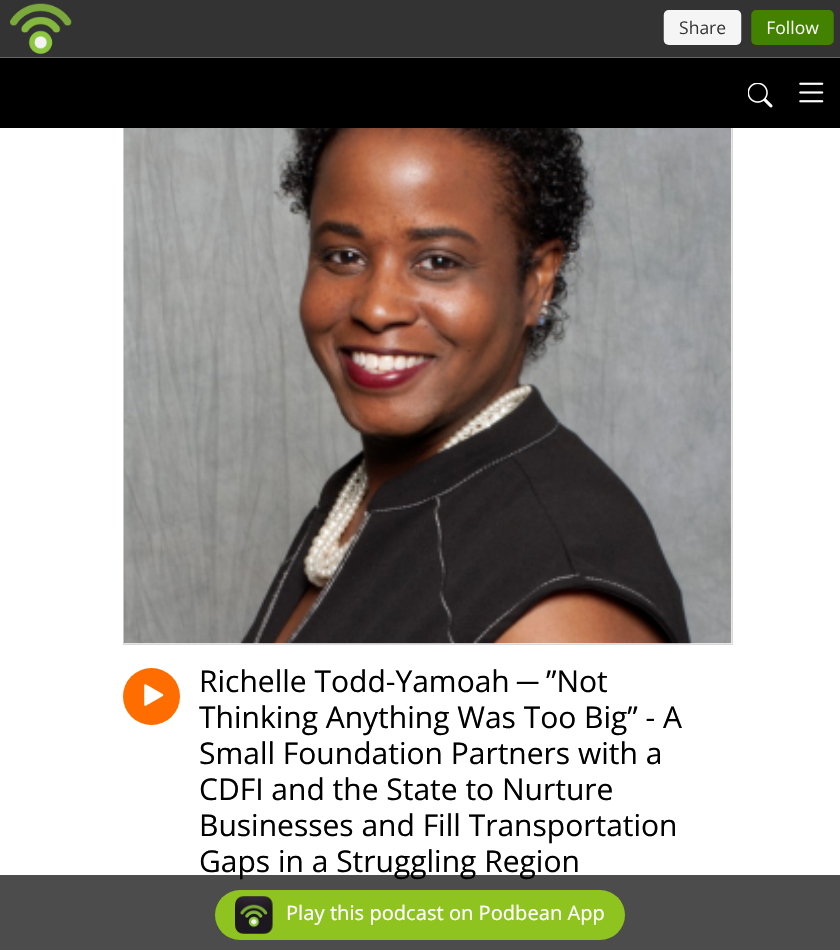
void draw(SkCanvas* canvas) {
    SkPaint paint;
    paint.setAntiAlias(true);
    canvas->clear(0xFFFFFFFF);
    paint.setColor(0xFF333333);
    canvas->drawRect(SkRect::MakeXYWH(0, 0, 840, 3), paint);
    paint.setStyle(SkPaint::kStroke_Style);
    paint.setStrokeWidth(1);
    paint.setColor(0xFFDADADA);
    canvas->drawRect(SkRect::MakeXYWH(123.5f, 35.5f, 609, 609), paint);
    canvas->drawImageRect(SkImages::DeferredFromEncodedData(SkData::MakeFromFileName("img1.png")), SkRect::MakeXYWH(0, 3, 840, 55), SkSamplingOptions());
    paint.setStyle(SkPaint::kFill_Style);
    paint.setColor(0xFF000000);
    canvas->drawRect(SkRect::MakeXYWH(0, 58, 840, 70), paint);
    canvas->drawImageRect(SkImages::DeferredFromEncodedData(SkData::MakeFromFileName("img2.png")), SkRect::MakeXYWH(748, 83, 25, 25), SkSamplingOptions());
    canvas->drawImageRect(SkImages::DeferredFromEncodedData(SkData::MakeFromFileName("img3.png")), SkRect::MakeXYWH(799, 82, 25, 21), SkSamplingOptions());
    canvas->drawImageRect(SkImages::DeferredFromEncodedData(SkData::MakeFromFileName("img4.png")), SkRect::MakeXYWH(123, 128, 609, 516), SkSamplingOptions());
    paint.setColor(0xFFFF6D00);
    canvas->drawCircle(151.5f, 696.5f, 28.5f, paint);
    canvas->drawImageRect(SkImages::DeferredFromEncodedData(SkData::MakeFromFileName("img5.png")), SkRect::MakeXYWH(144, 684, 20, 22), SkSamplingOptions());
    SkFont font1(fontMgr->matchFamilyStyle("Open Sans", SkFontStyle::Normal()), 30);
    font1.setSubpixel(true);
    paint.setColor(0xFF000000);
    canvas->drawString("Richelle Todd-Yamoah", 199, 692, font1, paint);
    SkFont font2(fontMgr->matchFamilyStyle("Liberation Sans", SkFontStyle::Normal()), 30);
    font2.setSubpixel(true);
    canvas->drawString("─", 517, 692, font2, paint);
    canvas->drawString("”Not", 546, 692, font1, paint);
    canvas->drawString("Thinking Anything Was Too Big” - A", 199, 728, font1, paint);
    canvas->drawString("Small Foundation Partners with a", 199, 764, font1, paint);
    canvas->drawString("CDFI and the State to Nurture", 199, 800, font1, paint);
    canvas->drawString("Businesses and Fill Transportation", 199, 836, font1, paint);
    canvas->drawString("Gaps in a Struggling Region", 199, 872, font1, paint);
    paint.setColor(0xB3000000);
    canvas->drawRect(SkRect::MakeXYWH(0, 875, 840, 75), paint);
    paint.setColor(0xFF8FC31F);
    canvas->drawRoundRect(SkRect::MakeXYWH(215, 890, 410, 50), 25, 25, paint);
    canvas->drawImageRect(SkImages::DeferredFromEncodedData(SkData::MakeFromFileName("img6.png")), SkRect::MakeXYWH(235, 896, 38, 38), SkSamplingOptions());
    SkFont font3(fontMgr->matchFamilyStyle("Noto Sans", SkFontStyle::Normal()), 20);
    font3.setSubpixel(true);
    paint.setColor(0xFFFFFFFF);
    canvas->drawString("Play this podcast on Podbean App", 286, 920, font3, paint);
}
